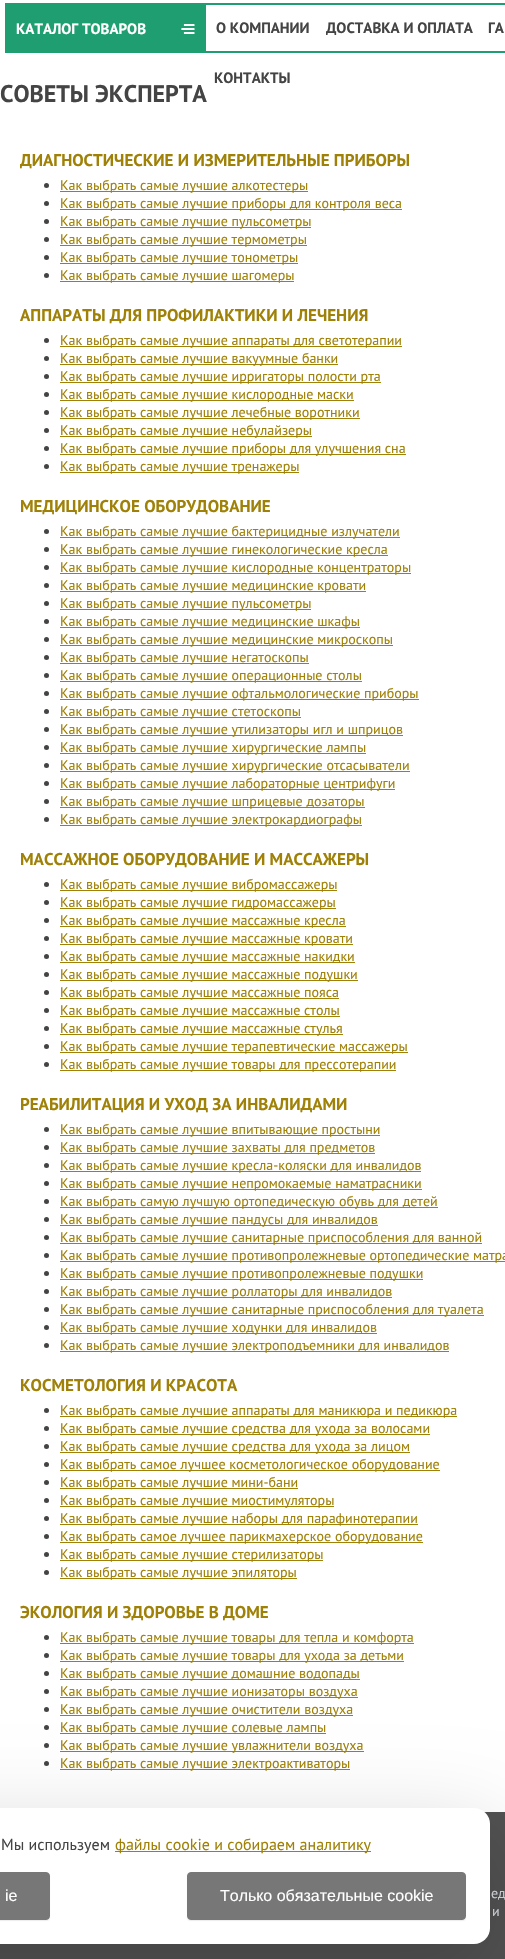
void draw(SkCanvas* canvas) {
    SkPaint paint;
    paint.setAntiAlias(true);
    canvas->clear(0xFFFFFFFF);
    paint.setColor(0xFF1F9E71);
    canvas->drawRect(SkRect::MakeXYWH(5, 3, 201, 50), paint);
    canvas->drawImageRect(SkImages::DeferredFromEncodedData(SkData::MakeFromFileName("img1.png")), SkRect::MakeXYWH(181, 24, 14, 10), SkSamplingOptions());
    SkFont font1(fontMgr->matchFamilyStyle("PT Sans", SkFontStyle::Bold()), 15);
    font1.setSubpixel(true);
    paint.setColor(0xFFFFFFFF);
    canvas->drawString("КАТАЛОГ ТОВАРОВ", 16, 34, font1, paint);
    paint.setColor(0xFF1F9E71);
    canvas->drawRect(SkRect::MakeXYWH(206, 3, 299, 2), paint);
    canvas->drawRect(SkRect::MakeXYWH(206, 51, 299, 2), paint);
    paint.setColor(0xFF444444);
    canvas->drawString("О КОМПАНИИ", 216, 33, font1, paint);
    canvas->drawString("ДОСТАВКА И ОПЛАТА", 326, 33, font1, paint);
    canvas->drawString("ГА", 488, 33, font1, paint);
    canvas->drawString("КОНТАКТЫ", 214, 83, font1, paint);
    SkFont font2(fontMgr->matchFamilyStyle("PT Sans", SkFontStyle::Bold()), 24);
    font2.setSubpixel(true);
    canvas->drawString("СОВЕТЫ ЭКСПЕРТА", 0, 102, font2, paint);
    SkFont font3(fontMgr->matchFamilyStyle("PT Sans", SkFontStyle::Bold()), 17);
    font3.setSubpixel(true);
    paint.setColor(0xFF9F8107);
    canvas->drawString("ДИАГНОСТИЧЕСКИЕ И ИЗМЕРИТЕЛЬНЫЕ ПРИБОРЫ", 20, 166, font3, paint);
    paint.setColor(0xFF444444);
    canvas->drawCircle(46.5f, 185.5f, 2.5f, paint);
    paint.setColor(0xFF9F8107);
    canvas->drawRect(SkRect::MakeXYWH(60, 191, 248, 1), paint);
    SkFont font4(fontMgr->matchFamilyStyle("PT Sans", SkFontStyle::Normal()), 14);
    font4.setSubpixel(true);
    canvas->drawString("Как выбрать самые лучшие алкотестеры", 60, 190, font4, paint);
    paint.setColor(0xFF444444);
    canvas->drawCircle(46.5f, 203.5f, 2.5f, paint);
    paint.setColor(0xFF9F8107);
    canvas->drawRect(SkRect::MakeXYWH(60, 209, 342, 1), paint);
    canvas->drawString("Как выбрать самые лучшие приборы для контроля веса", 60, 208, font4, paint);
    paint.setColor(0xFF444444);
    canvas->drawCircle(46.5f, 221.5f, 2.5f, paint);
    paint.setColor(0xFF9F8107);
    canvas->drawRect(SkRect::MakeXYWH(60, 227, 251, 1), paint);
    canvas->drawString("Как выбрать самые лучшие пульсометры", 60, 226, font4, paint);
    paint.setColor(0xFF444444);
    canvas->drawCircle(46.5f, 239.5f, 2.5f, paint);
    paint.setColor(0xFF9F8107);
    canvas->drawRect(SkRect::MakeXYWH(60, 245, 247, 1), paint);
    canvas->drawString("Как выбрать самые лучшие термометры", 60, 244, font4, paint);
    paint.setColor(0xFF444444);
    canvas->drawCircle(46.5f, 257.5f, 2.5f, paint);
    paint.setColor(0xFF9F8107);
    canvas->drawRect(SkRect::MakeXYWH(60, 263, 238, 1), paint);
    canvas->drawString("Как выбрать самые лучшие тонометры", 60, 262, font4, paint);
    paint.setColor(0xFF444444);
    canvas->drawCircle(46.5f, 275.5f, 2.5f, paint);
    paint.setColor(0xFF9F8107);
    canvas->drawRect(SkRect::MakeXYWH(60, 281, 234, 1), paint);
    canvas->drawString("Как выбрать самые лучшие шагомеры", 60, 280, font4, paint);
    canvas->drawString("АППАРАТЫ ДЛЯ ПРОФИЛАКТИКИ И ЛЕЧЕНИЯ", 20, 321, font3, paint);
    paint.setColor(0xFF444444);
    canvas->drawCircle(46.5f, 340.5f, 2.5f, paint);
    paint.setColor(0xFF9F8107);
    canvas->drawRect(SkRect::MakeXYWH(60, 346, 342, 1), paint);
    canvas->drawString("Как выбрать самые лучшие аппараты для светотерапии", 60, 345, font4, paint);
    paint.setColor(0xFF444444);
    canvas->drawCircle(46.5f, 358.5f, 2.5f, paint);
    paint.setColor(0xFF9F8107);
    canvas->drawRect(SkRect::MakeXYWH(60, 364, 278, 1), paint);
    canvas->drawString("Как выбрать самые лучшие вакуумные банки", 60, 363, font4, paint);
    paint.setColor(0xFF444444);
    canvas->drawCircle(46.5f, 376.5f, 2.5f, paint);
    paint.setColor(0xFF9F8107);
    canvas->drawRect(SkRect::MakeXYWH(60, 382, 321, 1), paint);
    canvas->drawString("Как выбрать самые лучшие ирригаторы полости рта", 60, 381, font4, paint);
    paint.setColor(0xFF444444);
    canvas->drawCircle(46.5f, 394.5f, 2.5f, paint);
    paint.setColor(0xFF9F8107);
    canvas->drawRect(SkRect::MakeXYWH(60, 400, 294, 1), paint);
    canvas->drawString("Как выбрать самые лучшие кислородные маски", 60, 399, font4, paint);
    paint.setColor(0xFF444444);
    canvas->drawCircle(46.5f, 412.5f, 2.5f, paint);
    paint.setColor(0xFF9F8107);
    canvas->drawRect(SkRect::MakeXYWH(60, 418, 300, 1), paint);
    canvas->drawString("Как выбрать самые лучшие лечебные воротники", 60, 417, font4, paint);
    paint.setColor(0xFF444444);
    canvas->drawCircle(46.5f, 430.5f, 2.5f, paint);
    paint.setColor(0xFF9F8107);
    canvas->drawRect(SkRect::MakeXYWH(60, 436, 252, 1), paint);
    canvas->drawString("Как выбрать самые лучшие небулайзеры", 60, 435, font4, paint);
    paint.setColor(0xFF444444);
    canvas->drawCircle(46.5f, 448.5f, 2.5f, paint);
    paint.setColor(0xFF9F8107);
    canvas->drawRect(SkRect::MakeXYWH(60, 454, 346, 1), paint);
    canvas->drawString("Как выбрать самые лучшие приборы для улучшения сна", 60, 453, font4, paint);
    paint.setColor(0xFF444444);
    canvas->drawCircle(46.5f, 466.5f, 2.5f, paint);
    paint.setColor(0xFF9F8107);
    canvas->drawRect(SkRect::MakeXYWH(60, 472, 239, 1), paint);
    canvas->drawString("Как выбрать самые лучшие тренажеры", 60, 471, font4, paint);
    canvas->drawString("МЕДИЦИНСКОЕ ОБОРУДОВАНИЕ", 20, 512, font3, paint);
    paint.setColor(0xFF444444);
    canvas->drawCircle(46.5f, 531.5f, 2.5f, paint);
    paint.setColor(0xFF9F8107);
    canvas->drawRect(SkRect::MakeXYWH(60, 537, 340, 1), paint);
    canvas->drawString("Как выбрать самые лучшие бактерицидные излучатели", 60, 536, font4, paint);
    paint.setColor(0xFF444444);
    canvas->drawCircle(46.5f, 549.5f, 2.5f, paint);
    paint.setColor(0xFF9F8107);
    canvas->drawRect(SkRect::MakeXYWH(60, 555, 328, 1), paint);
    canvas->drawString("Как выбрать самые лучшие гинекологические кресла", 60, 554, font4, paint);
    paint.setColor(0xFF444444);
    canvas->drawCircle(46.5f, 567.5f, 2.5f, paint);
    paint.setColor(0xFF9F8107);
    canvas->drawRect(SkRect::MakeXYWH(60, 573, 351, 1), paint);
    canvas->drawString("Как выбрать самые лучшие кислородные концентраторы", 60, 572, font4, paint);
    paint.setColor(0xFF444444);
    canvas->drawCircle(46.5f, 585.5f, 2.5f, paint);
    paint.setColor(0xFF9F8107);
    canvas->drawRect(SkRect::MakeXYWH(60, 591, 306, 1), paint);
    canvas->drawString("Как выбрать самые лучшие медицинские кровати", 60, 590, font4, paint);
    paint.setColor(0xFF444444);
    canvas->drawCircle(46.5f, 603.5f, 2.5f, paint);
    paint.setColor(0xFF9F8107);
    canvas->drawRect(SkRect::MakeXYWH(60, 609, 251, 1), paint);
    canvas->drawString("Как выбрать самые лучшие пульсометры", 60, 608, font4, paint);
    paint.setColor(0xFF444444);
    canvas->drawCircle(46.5f, 621.5f, 2.5f, paint);
    paint.setColor(0xFF9F8107);
    canvas->drawRect(SkRect::MakeXYWH(60, 627, 300, 1), paint);
    canvas->drawString("Как выбрать самые лучшие медицинские шкафы", 60, 626, font4, paint);
    paint.setColor(0xFF444444);
    canvas->drawCircle(46.5f, 639.5f, 2.5f, paint);
    paint.setColor(0xFF9F8107);
    canvas->drawRect(SkRect::MakeXYWH(60, 645, 333, 1), paint);
    canvas->drawString("Как выбрать самые лучшие медицинские микроскопы", 60, 644, font4, paint);
    paint.setColor(0xFF444444);
    canvas->drawCircle(46.5f, 657.5f, 2.5f, paint);
    paint.setColor(0xFF9F8107);
    canvas->drawRect(SkRect::MakeXYWH(60, 663, 249, 1), paint);
    canvas->drawString("Как выбрать самые лучшие негатоскопы", 60, 662, font4, paint);
    paint.setColor(0xFF444444);
    canvas->drawCircle(46.5f, 675.5f, 2.5f, paint);
    paint.setColor(0xFF9F8107);
    canvas->drawRect(SkRect::MakeXYWH(60, 681, 302, 1), paint);
    canvas->drawString("Как выбрать самые лучшие операционные столы", 60, 680, font4, paint);
    paint.setColor(0xFF444444);
    canvas->drawCircle(46.5f, 693.5f, 2.5f, paint);
    paint.setColor(0xFF9F8107);
    canvas->drawRect(SkRect::MakeXYWH(60, 699, 359, 1), paint);
    canvas->drawString("Как выбрать самые лучшие офтальмологические приборы", 60, 698, font4, paint);
    paint.setColor(0xFF444444);
    canvas->drawCircle(46.5f, 711.5f, 2.5f, paint);
    paint.setColor(0xFF9F8107);
    canvas->drawRect(SkRect::MakeXYWH(60, 717, 241, 1), paint);
    canvas->drawString("Как выбрать самые лучшие стетоскопы", 60, 716, font4, paint);
    paint.setColor(0xFF444444);
    canvas->drawCircle(46.5f, 729.5f, 2.5f, paint);
    paint.setColor(0xFF9F8107);
    canvas->drawRect(SkRect::MakeXYWH(60, 735, 343, 1), paint);
    canvas->drawString("Как выбрать самые лучшие утилизаторы игл и шприцов", 60, 734, font4, paint);
    paint.setColor(0xFF444444);
    canvas->drawCircle(46.5f, 747.5f, 2.5f, paint);
    paint.setColor(0xFF9F8107);
    canvas->drawRect(SkRect::MakeXYWH(60, 753, 306, 1), paint);
    canvas->drawString("Как выбрать самые лучшие хирургические лампы", 60, 752, font4, paint);
    paint.setColor(0xFF444444);
    canvas->drawCircle(46.5f, 765.5f, 2.5f, paint);
    paint.setColor(0xFF9F8107);
    canvas->drawRect(SkRect::MakeXYWH(60, 771, 350, 1), paint);
    canvas->drawString("Как выбрать самые лучшие хирургические отсасыватели", 60, 770, font4, paint);
    paint.setColor(0xFF444444);
    canvas->drawCircle(46.5f, 783.5f, 2.5f, paint);
    paint.setColor(0xFF9F8107);
    canvas->drawRect(SkRect::MakeXYWH(60, 789, 335, 1), paint);
    canvas->drawString("Как выбрать самые лучшие лабораторные центрифуги", 60, 788, font4, paint);
    paint.setColor(0xFF444444);
    canvas->drawCircle(46.5f, 801.5f, 2.5f, paint);
    paint.setColor(0xFF9F8107);
    canvas->drawRect(SkRect::MakeXYWH(60, 807, 305, 1), paint);
    canvas->drawString("Как выбрать самые лучшие шприцевые дозаторы", 60, 806, font4, paint);
    paint.setColor(0xFF444444);
    canvas->drawCircle(46.5f, 819.5f, 2.5f, paint);
    paint.setColor(0xFF9F8107);
    canvas->drawRect(SkRect::MakeXYWH(60, 825, 302, 1), paint);
    canvas->drawString("Как выбрать самые лучшие электрокардиографы", 60, 824, font4, paint);
    canvas->drawString("МАССАЖНОЕ ОБОРУДОВАНИЕ И МАССАЖЕРЫ", 20, 865, font3, paint);
    paint.setColor(0xFF444444);
    canvas->drawCircle(46.5f, 884.5f, 2.5f, paint);
    paint.setColor(0xFF9F8107);
    canvas->drawRect(SkRect::MakeXYWH(60, 890, 277, 1), paint);
    canvas->drawString("Как выбрать самые лучшие вибромассажеры", 60, 889, font4, paint);
    paint.setColor(0xFF444444);
    canvas->drawCircle(46.5f, 902.5f, 2.5f, paint);
    paint.setColor(0xFF9F8107);
    canvas->drawRect(SkRect::MakeXYWH(60, 908, 276, 1), paint);
    canvas->drawString("Как выбрать самые лучшие гидромассажеры", 60, 907, font4, paint);
    paint.setColor(0xFF444444);
    canvas->drawCircle(46.5f, 920.5f, 2.5f, paint);
    paint.setColor(0xFF9F8107);
    canvas->drawRect(SkRect::MakeXYWH(60, 926, 286, 1), paint);
    canvas->drawString("Как выбрать самые лучшие массажные кресла", 60, 925, font4, paint);
    paint.setColor(0xFF444444);
    canvas->drawCircle(46.5f, 938.5f, 2.5f, paint);
    paint.setColor(0xFF9F8107);
    canvas->drawRect(SkRect::MakeXYWH(60, 944, 293, 1), paint);
    canvas->drawString("Как выбрать самые лучшие массажные кровати", 60, 943, font4, paint);
    paint.setColor(0xFF444444);
    canvas->drawCircle(46.5f, 956.5f, 2.5f, paint);
    paint.setColor(0xFF9F8107);
    canvas->drawRect(SkRect::MakeXYWH(60, 962, 295, 1), paint);
    canvas->drawString("Как выбрать самые лучшие массажные накидки", 60, 961, font4, paint);
    paint.setColor(0xFF444444);
    canvas->drawCircle(46.5f, 974.5f, 2.5f, paint);
    paint.setColor(0xFF9F8107);
    canvas->drawRect(SkRect::MakeXYWH(60, 980, 298, 1), paint);
    canvas->drawString("Как выбрать самые лучшие массажные подушки", 60, 979, font4, paint);
    paint.setColor(0xFF444444);
    canvas->drawCircle(46.5f, 992.5f, 2.5f, paint);
    paint.setColor(0xFF9F8107);
    canvas->drawRect(SkRect::MakeXYWH(60, 998, 279, 1), paint);
    canvas->drawString("Как выбрать самые лучшие массажные пояса", 60, 997, font4, paint);
    paint.setColor(0xFF444444);
    canvas->drawCircle(46.5f, 1010.5f, 2.5f, paint);
    paint.setColor(0xFF9F8107);
    canvas->drawRect(SkRect::MakeXYWH(60, 1016, 280, 1), paint);
    canvas->drawString("Как выбрать самые лучшие массажные столы", 60, 1015, font4, paint);
    paint.setColor(0xFF444444);
    canvas->drawCircle(46.5f, 1028.5f, 2.5f, paint);
    paint.setColor(0xFF9F8107);
    canvas->drawRect(SkRect::MakeXYWH(60, 1034, 283, 1), paint);
    canvas->drawString("Как выбрать самые лучшие массажные стулья", 60, 1033, font4, paint);
    paint.setColor(0xFF444444);
    canvas->drawCircle(46.5f, 1046.5f, 2.5f, paint);
    paint.setColor(0xFF9F8107);
    canvas->drawRect(SkRect::MakeXYWH(60, 1052, 348, 1), paint);
    canvas->drawString("Как выбрать самые лучшие терапевтические массажеры", 60, 1051, font4, paint);
    paint.setColor(0xFF444444);
    canvas->drawCircle(46.5f, 1064.5f, 2.5f, paint);
    paint.setColor(0xFF9F8107);
    canvas->drawRect(SkRect::MakeXYWH(60, 1070, 336, 1), paint);
    canvas->drawString("Как выбрать самые лучшие товары для прессотерапии", 60, 1069, font4, paint);
    canvas->drawString("РЕАБИЛИТАЦИЯ И УХОД ЗА ИНВАЛИДАМИ", 20, 1110, font3, paint);
    paint.setColor(0xFF444444);
    canvas->drawCircle(46.5f, 1129.5f, 2.5f, paint);
    paint.setColor(0xFF9F8107);
    canvas->drawRect(SkRect::MakeXYWH(60, 1135, 320, 1), paint);
    canvas->drawString("Как выбрать самые лучшие впитывающие простыни", 60, 1134, font4, paint);
    paint.setColor(0xFF444444);
    canvas->drawCircle(46.5f, 1147.5f, 2.5f, paint);
    paint.setColor(0xFF9F8107);
    canvas->drawRect(SkRect::MakeXYWH(60, 1153, 315, 1), paint);
    canvas->drawString("Как выбрать самые лучшие захваты для предметов", 60, 1152, font4, paint);
    paint.setColor(0xFF444444);
    canvas->drawCircle(46.5f, 1165.5f, 2.5f, paint);
    paint.setColor(0xFF9F8107);
    canvas->drawRect(SkRect::MakeXYWH(60, 1171, 361, 1), paint);
    canvas->drawString("Как выбрать самые лучшие кресла-коляски для инвалидов", 60, 1170, font4, paint);
    paint.setColor(0xFF444444);
    canvas->drawCircle(46.5f, 1183.5f, 2.5f, paint);
    paint.setColor(0xFF9F8107);
    canvas->drawRect(SkRect::MakeXYWH(60, 1189, 362, 1), paint);
    canvas->drawString("Как выбрать самые лучшие непромокаемые наматрасники", 60, 1188, font4, paint);
    paint.setColor(0xFF444444);
    canvas->drawCircle(46.5f, 1201.5f, 2.5f, paint);
    paint.setColor(0xFF9F8107);
    canvas->drawRect(SkRect::MakeXYWH(60, 1207, 378, 1), paint);
    canvas->drawString("Как выбрать самую лучшую ортопедическую обувь для детей", 60, 1206, font4, paint);
    paint.setColor(0xFF444444);
    canvas->drawCircle(46.5f, 1219.5f, 2.5f, paint);
    paint.setColor(0xFF9F8107);
    canvas->drawRect(SkRect::MakeXYWH(60, 1225, 318, 1), paint);
    canvas->drawString("Как выбрать самые лучшие пандусы для инвалидов", 60, 1224, font4, paint);
    paint.setColor(0xFF444444);
    canvas->drawCircle(46.5f, 1237.5f, 2.5f, paint);
    paint.setColor(0xFF9F8107);
    canvas->drawRect(SkRect::MakeXYWH(60, 1243, 422, 1), paint);
    canvas->drawString("Как выбрать самые лучшие санитарные приспособления для ванной", 60, 1242, font4, paint);
    paint.setColor(0xFF444444);
    canvas->drawCircle(46.5f, 1255.5f, 2.5f, paint);
    paint.setColor(0xFF9F8107);
    canvas->drawRect(SkRect::MakeXYWH(60, 1261, 445, 1), paint);
    canvas->drawString("Как выбрать самые лучшие противопролежневые ортопедические матра", 60, 1260, font4, paint);
    paint.setColor(0xFF444444);
    canvas->drawCircle(46.5f, 1273.5f, 2.5f, paint);
    paint.setColor(0xFF9F8107);
    canvas->drawRect(SkRect::MakeXYWH(60, 1279, 363, 1), paint);
    canvas->drawString("Как выбрать самые лучшие противопролежневые подушки", 60, 1278, font4, paint);
    paint.setColor(0xFF444444);
    canvas->drawCircle(46.5f, 1291.5f, 2.5f, paint);
    paint.setColor(0xFF9F8107);
    canvas->drawRect(SkRect::MakeXYWH(60, 1297, 332, 1), paint);
    canvas->drawString("Как выбрать самые лучшие роллаторы для инвалидов", 60, 1296, font4, paint);
    paint.setColor(0xFF444444);
    canvas->drawCircle(46.5f, 1309.5f, 2.5f, paint);
    paint.setColor(0xFF9F8107);
    canvas->drawRect(SkRect::MakeXYWH(60, 1315, 424, 1), paint);
    canvas->drawString("Как выбрать самые лучшие санитарные приспособления для туалета", 60, 1314, font4, paint);
    paint.setColor(0xFF444444);
    canvas->drawCircle(46.5f, 1327.5f, 2.5f, paint);
    paint.setColor(0xFF9F8107);
    canvas->drawRect(SkRect::MakeXYWH(60, 1333, 317, 1), paint);
    canvas->drawString("Как выбрать самые лучшие ходунки для инвалидов", 60, 1332, font4, paint);
    paint.setColor(0xFF444444);
    canvas->drawCircle(46.5f, 1345.5f, 2.5f, paint);
    paint.setColor(0xFF9F8107);
    canvas->drawRect(SkRect::MakeXYWH(60, 1351, 389, 1), paint);
    canvas->drawString("Как выбрать самые лучшие электроподъемники для инвалидов", 60, 1350, font4, paint);
    canvas->drawString("КОСМЕТОЛОГИЯ И КРАСОТА", 20, 1391, font3, paint);
    paint.setColor(0xFF444444);
    canvas->drawCircle(46.5f, 1410.5f, 2.5f, paint);
    paint.setColor(0xFF9F8107);
    canvas->drawRect(SkRect::MakeXYWH(60, 1416, 397, 1), paint);
    canvas->drawString("Как выбрать самые лучшие аппараты для маникюра и педикюра", 60, 1415, font4, paint);
    paint.setColor(0xFF444444);
    canvas->drawCircle(46.5f, 1428.5f, 2.5f, paint);
    paint.setColor(0xFF9F8107);
    canvas->drawRect(SkRect::MakeXYWH(60, 1434, 370, 1), paint);
    canvas->drawString("Как выбрать самые лучшие средства для ухода за волосами", 60, 1433, font4, paint);
    paint.setColor(0xFF444444);
    canvas->drawCircle(46.5f, 1446.5f, 2.5f, paint);
    paint.setColor(0xFF9F8107);
    canvas->drawRect(SkRect::MakeXYWH(60, 1452, 350, 1), paint);
    canvas->drawString("Как выбрать самые лучшие средства для ухода за лицом", 60, 1451, font4, paint);
    paint.setColor(0xFF444444);
    canvas->drawCircle(46.5f, 1464.5f, 2.5f, paint);
    paint.setColor(0xFF9F8107);
    canvas->drawRect(SkRect::MakeXYWH(60, 1470, 380, 1), paint);
    canvas->drawString("Как выбрать самое лучшее косметологическое оборудование", 60, 1469, font4, paint);
    paint.setColor(0xFF444444);
    canvas->drawCircle(46.5f, 1482.5f, 2.5f, paint);
    paint.setColor(0xFF9F8107);
    canvas->drawRect(SkRect::MakeXYWH(60, 1488, 238, 1), paint);
    canvas->drawString("Как выбрать самые лучшие мини-бани", 60, 1487, font4, paint);
    paint.setColor(0xFF444444);
    canvas->drawCircle(46.5f, 1500.5f, 2.5f, paint);
    paint.setColor(0xFF9F8107);
    canvas->drawRect(SkRect::MakeXYWH(60, 1506, 274, 1), paint);
    canvas->drawString("Как выбрать самые лучшие миостимуляторы", 60, 1505, font4, paint);
    paint.setColor(0xFF444444);
    canvas->drawCircle(46.5f, 1518.5f, 2.5f, paint);
    paint.setColor(0xFF9F8107);
    canvas->drawRect(SkRect::MakeXYWH(60, 1524, 358, 1), paint);
    canvas->drawString("Как выбрать самые лучшие наборы для парафинотерапии", 60, 1523, font4, paint);
    paint.setColor(0xFF444444);
    canvas->drawCircle(46.5f, 1536.5f, 2.5f, paint);
    paint.setColor(0xFF9F8107);
    canvas->drawRect(SkRect::MakeXYWH(60, 1542, 363, 1), paint);
    canvas->drawString("Как выбрать самое лучшее парикмахерское оборудование", 60, 1541, font4, paint);
    paint.setColor(0xFF444444);
    canvas->drawCircle(46.5f, 1554.5f, 2.5f, paint);
    paint.setColor(0xFF9F8107);
    canvas->drawRect(SkRect::MakeXYWH(60, 1560, 263, 1), paint);
    canvas->drawString("Как выбрать самые лучшие стерилизаторы", 60, 1559, font4, paint);
    paint.setColor(0xFF444444);
    canvas->drawCircle(46.5f, 1572.5f, 2.5f, paint);
    paint.setColor(0xFF9F8107);
    canvas->drawRect(SkRect::MakeXYWH(60, 1578, 237, 1), paint);
    canvas->drawString("Как выбрать самые лучшие эпиляторы", 60, 1577, font4, paint);
    canvas->drawString("ЭКОЛОГИЯ И ЗДОРОВЬЕ В ДОМЕ", 20, 1618, font3, paint);
    paint.setColor(0xFF444444);
    canvas->drawCircle(46.5f, 1637.5f, 2.5f, paint);
    paint.setColor(0xFF9F8107);
    canvas->drawRect(SkRect::MakeXYWH(60, 1643, 354, 1), paint);
    canvas->drawString("Как выбрать самые лучшие товары для тепла и комфорта", 60, 1642, font4, paint);
    paint.setColor(0xFF444444);
    canvas->drawCircle(46.5f, 1655.5f, 2.5f, paint);
    paint.setColor(0xFF9F8107);
    canvas->drawRect(SkRect::MakeXYWH(60, 1661, 344, 1), paint);
    canvas->drawString("Как выбрать самые лучшие товары для ухода за детьми", 60, 1660, font4, paint);
    paint.setColor(0xFF444444);
    canvas->drawCircle(46.5f, 1673.5f, 2.5f, paint);
    paint.setColor(0xFF9F8107);
    canvas->drawRect(SkRect::MakeXYWH(60, 1679, 300, 1), paint);
    canvas->drawString("Как выбрать самые лучшие домашние водопады", 60, 1678, font4, paint);
    paint.setColor(0xFF444444);
    canvas->drawCircle(46.5f, 1691.5f, 2.5f, paint);
    paint.setColor(0xFF9F8107);
    canvas->drawRect(SkRect::MakeXYWH(60, 1697, 298, 1), paint);
    canvas->drawString("Как выбрать самые лучшие ионизаторы воздуха", 60, 1696, font4, paint);
    paint.setColor(0xFF444444);
    canvas->drawCircle(46.5f, 1709.5f, 2.5f, paint);
    paint.setColor(0xFF9F8107);
    canvas->drawRect(SkRect::MakeXYWH(60, 1715, 293, 1), paint);
    canvas->drawString("Как выбрать самые лучшие очистители воздуха", 60, 1714, font4, paint);
    paint.setColor(0xFF444444);
    canvas->drawCircle(46.5f, 1727.5f, 2.5f, paint);
    paint.setColor(0xFF9F8107);
    canvas->drawRect(SkRect::MakeXYWH(60, 1733, 266, 1), paint);
    canvas->drawString("Как выбрать самые лучшие солевые лампы", 60, 1732, font4, paint);
    paint.setColor(0xFF444444);
    canvas->drawCircle(46.5f, 1745.5f, 2.5f, paint);
    paint.setColor(0xFF9F8107);
    canvas->drawRect(SkRect::MakeXYWH(60, 1751, 304, 1), paint);
    canvas->drawString("Как выбрать самые лучшие увлажнители воздуха", 60, 1750, font4, paint);
    paint.setColor(0xFF444444);
    canvas->drawCircle(46.5f, 1763.5f, 2.5f, paint);
    paint.setColor(0xFF9F8107);
    canvas->drawRect(SkRect::MakeXYWH(60, 1769, 290, 1), paint);
    canvas->drawString("Как выбрать самые лучшие электроактиваторы", 60, 1768, font4, paint);
    paint.setColor(0xFF525252);
    canvas->drawRect(SkRect::MakeXYWH(0, 1812, 505, 147), paint);
    paint.setColor(0x2B000000);
    paint.setMaskFilter(SkMaskFilter::MakeBlur(kNormal_SkBlurStyle, 44));
    canvas->drawRoundRect(SkRect::MakeXYWH(-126, 1830, 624, 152), 24, 24, paint);
    paint.setMaskFilter(nullptr);
    paint.setColor(0xFFFFFFFF);
    canvas->drawRoundRect(SkRect::MakeXYWH(-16, 1808, 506, 136), 16, 16, paint);
    SkFont font5(fontMgr->matchFamilyStyle("PT Sans", SkFontStyle::Normal()), 16);
    font5.setSubpixel(true);
    paint.setColor(0xFF444444);
    canvas->drawString("Мы используем", 1, 1850, font5, paint);
    paint.setColor(0xFF9F8107);
    canvas->drawRect(SkRect::MakeXYWH(115, 1851, 256, 1), paint);
    canvas->drawString("файлы cookie и собираем аналитику", 115, 1850, font5, paint);
    paint.setColor(0x12000000);
    paint.setMaskFilter(SkMaskFilter::MakeBlur(kNormal_SkBlurStyle, 0.5f));
    canvas->drawRoundRect(SkRect::MakeXYWH(-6, 1873, 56, 48), 4, 4, paint);
    paint.setMaskFilter(nullptr);
    paint.setColor(0xFF777777);
    canvas->drawRoundRect(SkRect::MakeXYWH(-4.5f, 1872.5f, 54, 47), 3.5f, 3.5f, paint);
    paint.setStyle(SkPaint::kStroke_Style);
    paint.setStrokeWidth(1);
    canvas->drawRoundRect(SkRect::MakeXYWH(-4.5f, 1872.5f, 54, 47), 3.5f, 3.5f, paint);
    SkFont font6(fontMgr->matchFamilyStyle("Liberation Sans", SkFontStyle::Normal()), 16);
    font6.setSubpixel(true);
    paint.setStyle(SkPaint::kFill_Style);
    paint.setColor(0xFFFFFFFF);
    canvas->drawString("ie", 5, 1901, font6, paint);
    paint.setColor(0x12000000);
    paint.setMaskFilter(SkMaskFilter::MakeBlur(kNormal_SkBlurStyle, 0.5f));
    canvas->drawRoundRect(SkRect::MakeXYWH(187, 1873, 279, 48), 4, 4, paint);
    paint.setMaskFilter(nullptr);
    paint.setColor(0xFF777777);
    canvas->drawRoundRect(SkRect::MakeXYWH(187.5f, 1872.5f, 278, 47), 3.5f, 3.5f, paint);
    paint.setStyle(SkPaint::kStroke_Style);
    canvas->drawRoundRect(SkRect::MakeXYWH(187.5f, 1872.5f, 278, 47), 3.5f, 3.5f, paint);
    paint.setStyle(SkPaint::kFill_Style);
    paint.setColor(0xFFFFFFFF);
    canvas->drawString("Только обязательные cookie", 220, 1901, font6, paint);
    paint.setColor(0xFFC7CBD1);
    canvas->drawString("ед", 491, 1898, font4, paint);
    canvas->drawString("и", 492, 1916, font4, paint);
}
